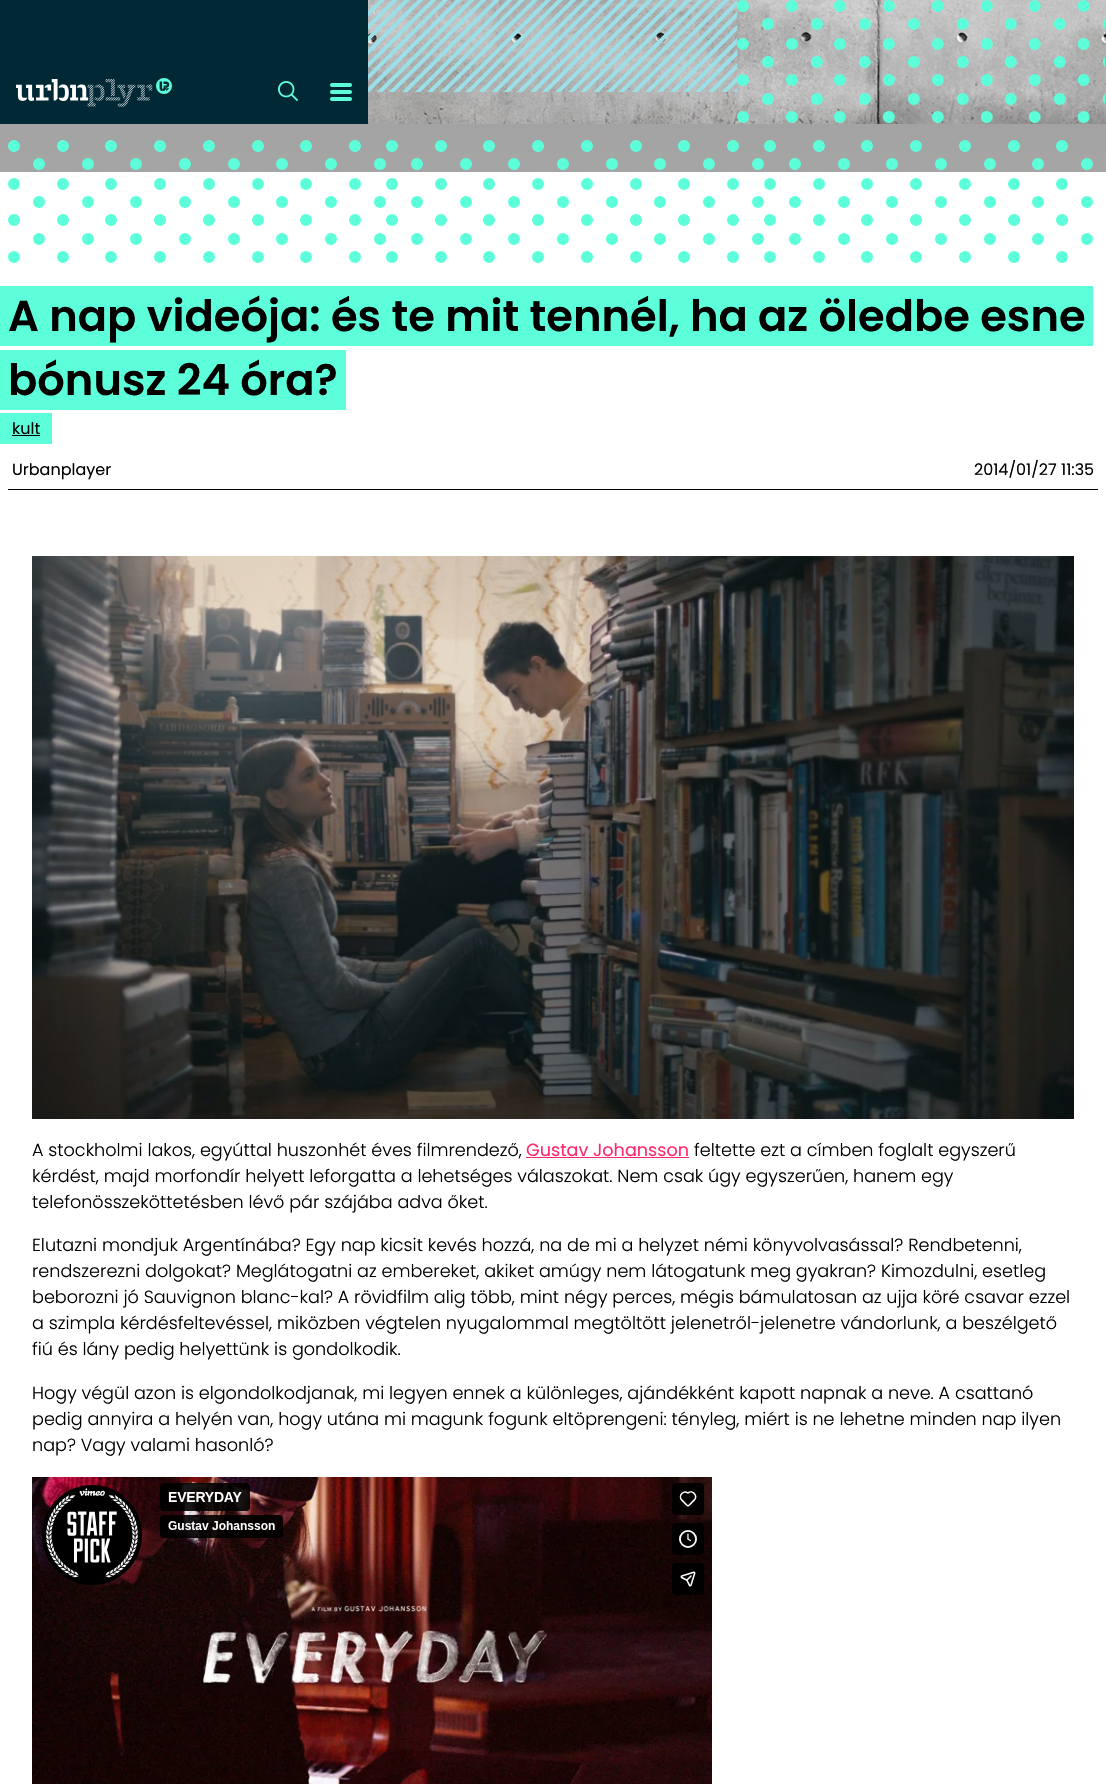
void draw(SkCanvas* canvas) {
    SkPaint paint;
    paint.setAntiAlias(true);
    canvas->clear(0xFFFFFFFF);
    {
        const SkColor colors[] = {0xFF9E9E9E, 0xFFE9EAE7};
        const float stops[] = {0, 1};
        const SkPoint ends[] = {{553, 0}, {553, 1784}};
        paint.setShader(SkGradientShader::MakeLinear(ends, colors, stops, 2, SkTileMode::kClamp));
        paint.setAlpha(255);
    }
    canvas->drawRect(SkRect::MakeXYWH(0, 124, 1106, 48), paint);
    canvas->drawImageRect(SkImages::DeferredFromEncodedData(SkData::MakeFromFileName("img1.png")), SkRect::MakeXYWH(368, 0, 738, 124), SkSamplingOptions());
    paint.setShader(nullptr);
    paint.setColor(0xFF002835);
    canvas->drawRect(SkRect::MakeXYWH(0, 0, 368, 124), paint);
    canvas->drawImageRect(SkImages::DeferredFromEncodedData(SkData::MakeFromFileName("img2.png")), SkRect::MakeXYWH(16, 78, 156, 29), SkSamplingOptions());
    canvas->drawImageRect(SkImages::DeferredFromEncodedData(SkData::MakeFromFileName("img3.png")), SkRect::MakeXYWH(278, 81, 20, 20), SkSamplingOptions());
    paint.setColor(0xFF5CFFDA);
    canvas->drawRoundRect(SkRect::MakeXYWH(330, 83, 22, 4), 2, 2, paint);
    canvas->drawRoundRect(SkRect::MakeXYWH(330, 90, 22, 4), 2, 2, paint);
    canvas->drawRoundRect(SkRect::MakeXYWH(330, 97, 22, 4), 2, 2, paint);
    canvas->drawImageRect(SkImages::DeferredFromEncodedData(SkData::MakeFromFileName("img4.png")), SkRect::MakeXYWH(368, 0, 369, 92), SkSamplingOptions());
    canvas->drawImageRect(SkImages::DeferredFromEncodedData(SkData::MakeFromFileName("img5.png")), SkRect::MakeXYWH(737, 0, 368, 123), SkSamplingOptions());
    canvas->drawImageRect(SkImages::DeferredFromEncodedData(SkData::MakeFromFileName("img6.png")), SkRect::MakeXYWH(8, 140, 1085, 123), SkSamplingOptions());
    canvas->drawRect(SkRect::MakeXYWH(8, 286, 1085, 60), paint);
    SkFont font1(fontMgr->matchFamilyStyle("Poppins", SkFontStyle(600, SkFontStyle::kNormal_Width, SkFontStyle::kUpright_Slant)), 43.2f);
    font1.setSubpixel(true);
    paint.setColor(0xFF000000);
    canvas->drawString("A nap videója: és te mit tennél, ha az öledbe esne", 8, 331, font1, paint);
    paint.setColor(0xFF5CFFDA);
    canvas->drawRect(SkRect::MakeXYWH(0, 286, 8, 60), paint);
    canvas->drawRect(SkRect::MakeXYWH(8, 350, 338, 60), paint);
    paint.setColor(0xFF000000);
    canvas->drawString("bónusz 24 óra?", 8, 395, font1, paint);
    paint.setColor(0xFF5CFFDA);
    canvas->drawRect(SkRect::MakeXYWH(0, 350, 8, 60), paint);
    canvas->drawRect(SkRect::MakeXYWH(8, 413, 44, 31), paint);
    SkFont font2(fontMgr->matchFamilyStyle("Poppins", SkFontStyle::Normal()), 16);
    font2.setSubpixel(true);
    paint.setColor(0xFF000000);
    canvas->drawString("kult", 12, 434, font2, paint);
    paint.setColor(0xFF5CFFDA);
    canvas->drawRect(SkRect::MakeXYWH(0, 413, 8, 31), paint);
    paint.setColor(0xFF000000);
    canvas->drawRect(SkRect::MakeXYWH(12, 435, 28, 1), paint);
    canvas->drawRect(SkRect::MakeXYWH(8, 489, 1090, 1), paint);
    canvas->drawString("Urbanplayer", 12, 475, font2, paint);
    canvas->drawString("2014/01/27 11:35", 974, 475, font2, paint);
    canvas->drawImageRect(SkImages::DeferredFromEncodedData(SkData::MakeFromFileName("img7.png")), SkRect::MakeXYWH(32, 556, 1042, 563), SkSamplingOptions());
    SkFont font3(fontMgr->matchFamilyStyle("Poppins", SkFontStyle(300, SkFontStyle::kNormal_Width, SkFontStyle::kUpright_Slant)), 17.6f);
    font3.setSubpixel(true);
    canvas->drawString("A stockholmi lakos, egyúttal huszonhét éves filmrendező,", 32, 1156, font3, paint);
    SkFont font4(fontMgr->matchFamilyStyle("Poppins", SkFontStyle::Normal()), 17.6f);
    font4.setSubpixel(true);
    paint.setColor(0xFFFF2869);
    canvas->drawString("Gustav Johansson", 526, 1156, font4, paint);
    canvas->drawRect(SkRect::MakeXYWH(526, 1157, 163, 1), paint);
    paint.setColor(0xFF000000);
    canvas->drawString("feltette ezt a címben foglalt egyszerű", 694, 1156, font3, paint);
    canvas->drawString("kérdést, majd morfondír helyett leforgatta a lehetséges válaszokat. Nem csak úgy egyszerűen, hanem egy", 32, 1182, font3, paint);
    canvas->drawString("telefonösszeköttetésben lévő pár szájába adva őket.", 32, 1208, font3, paint);
    canvas->drawString("Elutazni mondjuk Argentínába? Egy nap kicsit kevés hozzá, na de mi a helyzet némi könyvolvasással? Rendbetenni,", 32, 1251, font3, paint);
    canvas->drawString("rendszerezni dolgokat? Meglátogatni az embereket, akiket amúgy nem látogatunk meg gyakran? Kimozdulni, esetleg", 32, 1277, font3, paint);
    canvas->drawString("beborozni jó Sauvignon blanc-kal? A rövidfilm alig több, mint négy perces, mégis bámulatosan az ujja köré csavar ezzel", 32, 1303, font3, paint);
    canvas->drawString("a szimpla kérdésfeltevéssel, miközben végtelen nyugalommal megtöltött jelenetről-jelenetre vándorlunk, a beszélgető", 32, 1329, font3, paint);
    canvas->drawString("fiú és lány pedig helyettünk is gondolkodik.", 32, 1355, font3, paint);
    canvas->drawString("Hogy végül azon is elgondolkodjanak, mi legyen ennek a különleges, ajándékként kapott napnak a neve. A csattanó", 32, 1399, font3, paint);
    canvas->drawString("pedig annyira a helyén van, hogy utána mi magunk fogunk eltöprengeni: tényleg, miért is ne lehetne minden nap ilyen", 32, 1425, font3, paint);
    canvas->drawString("nap? Vagy valami hasonló?", 32, 1451, font3, paint);
    canvas->drawImageRect(SkImages::DeferredFromEncodedData(SkData::MakeFromFileName("img8.png")), SkRect::MakeXYWH(32, 1477, 680, 307), SkSamplingOptions());
}
